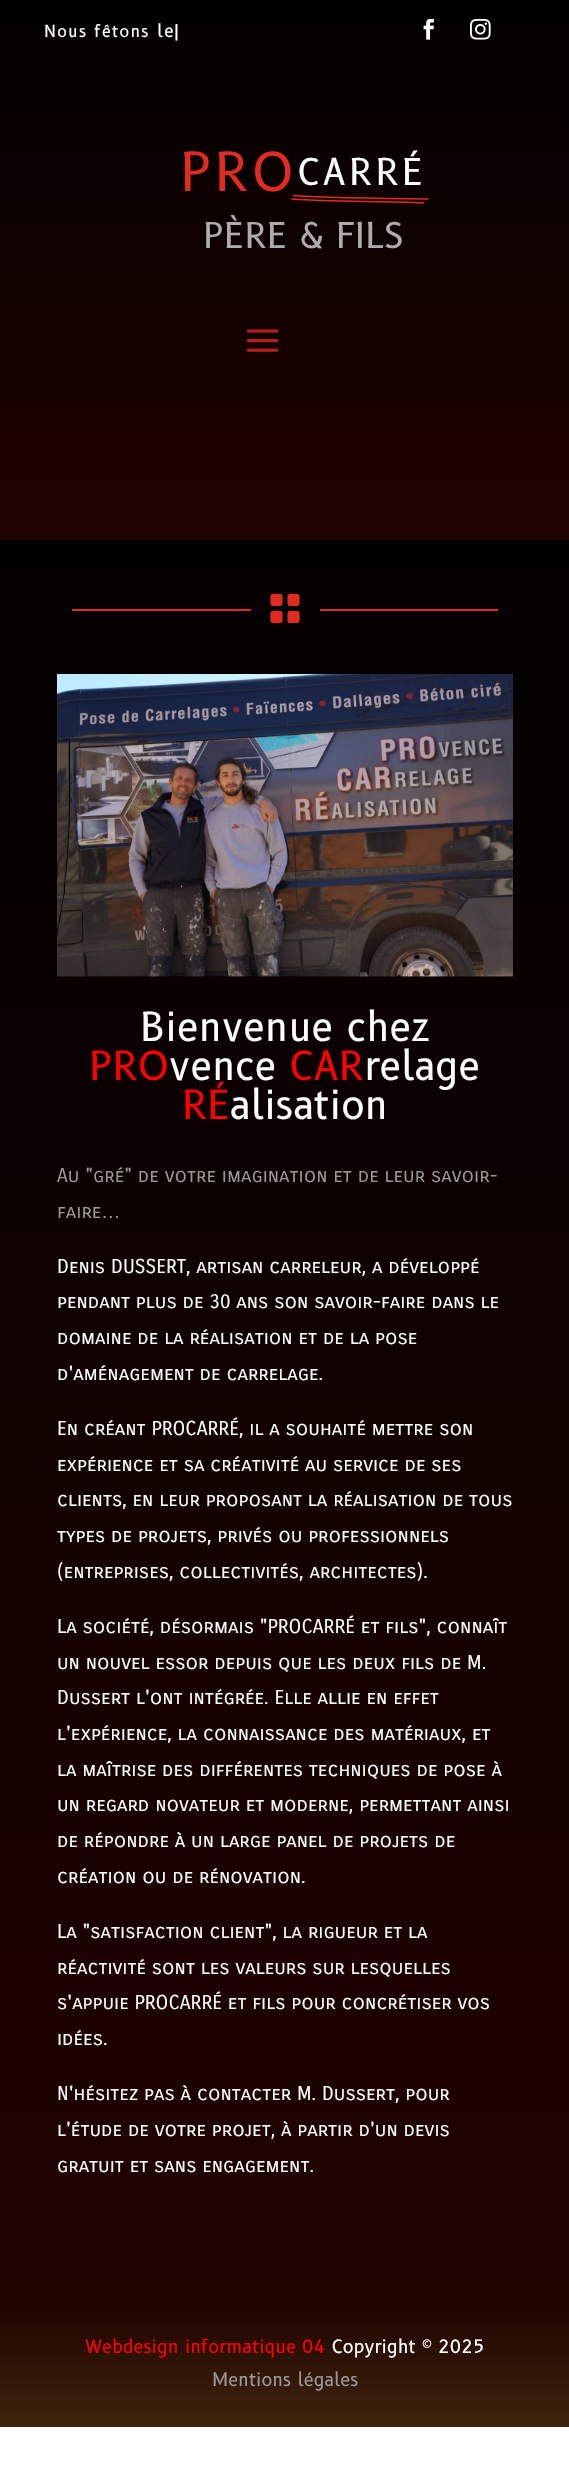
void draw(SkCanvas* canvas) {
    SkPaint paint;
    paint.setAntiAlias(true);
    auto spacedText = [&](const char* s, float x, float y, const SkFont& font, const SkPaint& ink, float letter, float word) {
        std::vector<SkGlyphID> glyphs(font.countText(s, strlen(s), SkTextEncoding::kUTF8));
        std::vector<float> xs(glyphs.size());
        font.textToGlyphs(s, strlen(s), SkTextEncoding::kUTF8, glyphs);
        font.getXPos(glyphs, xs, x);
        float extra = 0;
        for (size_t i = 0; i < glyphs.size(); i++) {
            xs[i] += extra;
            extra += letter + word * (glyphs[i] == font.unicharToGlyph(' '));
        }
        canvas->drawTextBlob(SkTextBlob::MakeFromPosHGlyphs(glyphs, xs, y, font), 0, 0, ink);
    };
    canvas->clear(0xFFFFFFFF);
    {
        const SkColor colors[] = {0xFF000000, 0xFF210300};
        const float stops[] = {0, 1};
        const SkPoint ends[] = {{285, 0}, {285, 540}};
        paint.setShader(SkGradientShader::MakeLinear(ends, colors, stops, 2, SkTileMode::kClamp));
        paint.setAlpha(255);
    }
    canvas->drawRect(SkRect::MakeXYWH(0, 0, 569, 540), paint);
    SkFont font1(fontMgr->matchFamilyStyle("B612", SkFontStyle::Normal()), 16);
    font1.setSubpixel(true);
    paint.setShader(nullptr);
    paint.setColor(0xFFFFFFFF);
    spacedText("Nous fêtons", 44, 37, font1, paint, 1.25f, 0);
    SkFont font2(fontMgr->matchFamilyStyle("B612", SkFontStyle::Normal()), 17);
    font2.setSubpixel(true);
    spacedText("le|", 157, 37, font2, paint, 1.25f, 0);
    canvas->drawImageRect(SkImages::DeferredFromEncodedData(SkData::MakeFromFileName("img1.png")), SkRect::MakeXYWH(423, 18, 11, 22), SkSamplingOptions());
    canvas->drawImageRect(SkImages::DeferredFromEncodedData(SkData::MakeFromFileName("img2.png")), SkRect::MakeXYWH(470, 18, 21, 22), SkSamplingOptions());
    SkFont font3(fontMgr->matchFamilyStyle("B612", SkFontStyle::Normal()), 52.5f);
    font3.setSubpixel(true);
    paint.setColor(0xFFE02B20);
    spacedText("PRO", 180, 191, font3, paint, 3, 0);
    SkFont font4(fontMgr->matchFamilyStyle("B612", SkFontStyle::Normal()), 36);
    font4.setSubpixel(true);
    paint.setColor(0xFFFFFFFF);
    spacedText("CARRÉ", 298, 185, font4, paint, 3, 0);
    paint.setStyle(SkPaint::kStroke_Style);
    paint.setStrokeWidth(1.5f);
    paint.setColor(0xFFE02B20);
    canvas->drawPath(SkPathBuilder().moveTo(291.5f, 199).cubicTo(339, 202.5f, 379.5f, 200.5f, 424, 203).detach(), paint);
    canvas->drawPath(SkPathBuilder().moveTo(428.5f, 199).cubicTo(375.5f, 198.5f, 332.5f, 198, 293, 195.5f).detach(), paint);
    SkFont font5(fontMgr->matchFamilyStyle("B612", SkFontStyle::Normal()), 34.5f);
    font5.setSubpixel(true);
    paint.setStyle(SkPaint::kFill_Style);
    paint.setColor(0xFFADADAD);
    canvas->drawString("PÈRE & FILS", 203, 248, font5, paint);
    canvas->drawImageRect(SkImages::DeferredFromEncodedData(SkData::MakeFromFileName("img3.png")), SkRect::MakeXYWH(246, 329, 33, 23), SkSamplingOptions());
    {
        const SkColor colors[] = {0xFF000000, 0xFF210300};
        const float stops[] = {0, 1};
        const SkPoint ends[] = {{285, 485}, {285, 2306}};
        paint.setShader(SkGradientShader::MakeLinear(ends, colors, stops, 2, SkTileMode::kClamp));
        paint.setAlpha(255);
    }
    canvas->drawRect(SkRect::MakeXYWH(0, 540, 569, 1766), paint);
    paint.setShader(nullptr);
    paint.setColor(0xFFE02B20);
    canvas->drawRect(SkRect::MakeXYWH(72, 609, 179, 2), paint);
    canvas->drawImageRect(SkImages::DeferredFromEncodedData(SkData::MakeFromFileName("img4.png")), SkRect::MakeXYWH(270, 593, 30, 31), SkSamplingOptions());
    canvas->drawRect(SkRect::MakeXYWH(320, 609, 178, 2), paint);
    canvas->drawImageRect(SkImages::DeferredFromEncodedData(SkData::MakeFromFileName("img5.png")), SkRect::MakeXYWH(57, 674, 456, 303), SkSamplingOptions());
    SkFont font6(fontMgr->matchFamilyStyle("B612", SkFontStyle::Normal()), 39);
    font6.setSubpixel(true);
    paint.setColor(0xFFFFFFFF);
    canvas->drawString("Bienvenue chez", 140, 1041, font6, paint);
    paint.setColor(0xFFFF0000);
    canvas->drawString("PRO", 89, 1080, font6, paint);
    paint.setColor(0xFFFFFFFF);
    canvas->drawString("vence", 169, 1080, font6, paint);
    paint.setColor(0xFFFF0000);
    canvas->drawString("CAR", 290, 1080, font6, paint);
    paint.setColor(0xFFFFFFFF);
    canvas->drawString("relage", 364, 1080, font6, paint);
    paint.setColor(0xFFFF0000);
    canvas->drawString("RÉ", 182, 1119, font6, paint);
    paint.setColor(0xFFFFFFFF);
    canvas->drawString("alisation", 230, 1119, font6, paint);
    SkFont font7(fontMgr->matchFamilyStyle("Carrois Gothic SC", SkFontStyle::Normal()), 19.5f);
    font7.setSubpixel(true);
    paint.setColor(0xFF999999);
    canvas->drawString("Au \"gré\" de votre imagination et de leur savoir-", 57, 1182, font7, paint);
    canvas->drawString("faire", 57, 1218, font7, paint);
    SkFont font8(fontMgr->matchFamilyStyle("Liberation Sans", SkFontStyle::Normal()), 19.5f);
    font8.setSubpixel(true);
    canvas->drawString("…", 101, 1218, font8, paint);
    paint.setColor(0xFFFFFFFF);
    canvas->drawString("Denis DUSSERT, artisan carreleur, a développé", 57, 1273, font7, paint);
    canvas->drawString("pendant plus de 30 ans son savoir-faire dans le", 57, 1308, font7, paint);
    canvas->drawString("domaine de la réalisation et de la pose", 57, 1344, font7, paint);
    canvas->drawString("d'aménagement de carrelage.", 57, 1380, font7, paint);
    canvas->drawString("En créant PROCARRÉ, il a souhaité mettre son", 57, 1435, font7, paint);
    canvas->drawString("expérience et sa créativité au service de ses", 57, 1471, font7, paint);
    canvas->drawString("clients, en leur proposant la réalisation de tous", 57, 1506, font7, paint);
    canvas->drawString("types de projets, privés ou professionnels", 57, 1542, font7, paint);
    canvas->drawString("(entreprises, collectivités, architectes).", 57, 1578, font7, paint);
    canvas->drawString("La société, désormais \"PROCARRÉ et fils\", connaît", 57, 1633, font7, paint);
    canvas->drawString("un nouvel essor depuis que les deux fils de M.", 57, 1669, font7, paint);
    canvas->drawString("Dussert l'ont intégrée. Elle allie en effet", 57, 1704, font7, paint);
    canvas->drawString("l'expérience, la connaissance des matériaux, et", 57, 1740, font7, paint);
    canvas->drawString("la maîtrise des différentes techniques de pose à", 57, 1776, font7, paint);
    canvas->drawString("un regard novateur et moderne, permettant ainsi", 57, 1811, font7, paint);
    canvas->drawString("de répondre à un large panel de projets de", 57, 1847, font7, paint);
    canvas->drawString("création ou de rénovation.", 57, 1883, font7, paint);
    canvas->drawString("La \"satisfaction client\", la rigueur et la", 57, 1938, font7, paint);
    canvas->drawString("réactivité sont les valeurs sur lesquelles", 57, 1974, font7, paint);
    canvas->drawString("s'appuie PROCARRÉ et fils pour concrétiser vos", 57, 2009, font7, paint);
    canvas->drawString("idées.", 57, 2045, font7, paint);
    canvas->drawString("N'hésitez pas à contacter M. Dussert, pour", 57, 2100, font7, paint);
    canvas->drawString("l'étude de votre projet, à partir d'un devis", 57, 2136, font7, paint);
    canvas->drawString("gratuit et sans engagement.", 57, 2172, font7, paint);
    {
        const SkColor colors[] = {0xFF210300, 0xFF3F250D};
        const float stops[] = {0, 1};
        const SkPoint ends[] = {{285, 2306}, {285, 2427}};
        paint.setShader(SkGradientShader::MakeLinear(ends, colors, stops, 2, SkTileMode::kClamp));
        paint.setAlpha(255);
    }
    canvas->drawRect(SkRect::MakeXYWH(0, 2306, 569, 121), paint);
    SkFont font9(fontMgr->matchFamilyStyle("B612", SkFontStyle::Normal()), 18);
    font9.setSubpixel(true);
    paint.setShader(nullptr);
    paint.setColor(0xFFFF0000);
    canvas->drawString("Webdesign informatique 04", 85, 2353, font9, paint);
    paint.setColor(0xFFFFFFFF);
    canvas->drawString("Copyright © 2025", 332, 2353, font9, paint);
    paint.setColor(0xFF999999);
    canvas->drawString("Mentions légales", 212, 2386, font9, paint);
}
